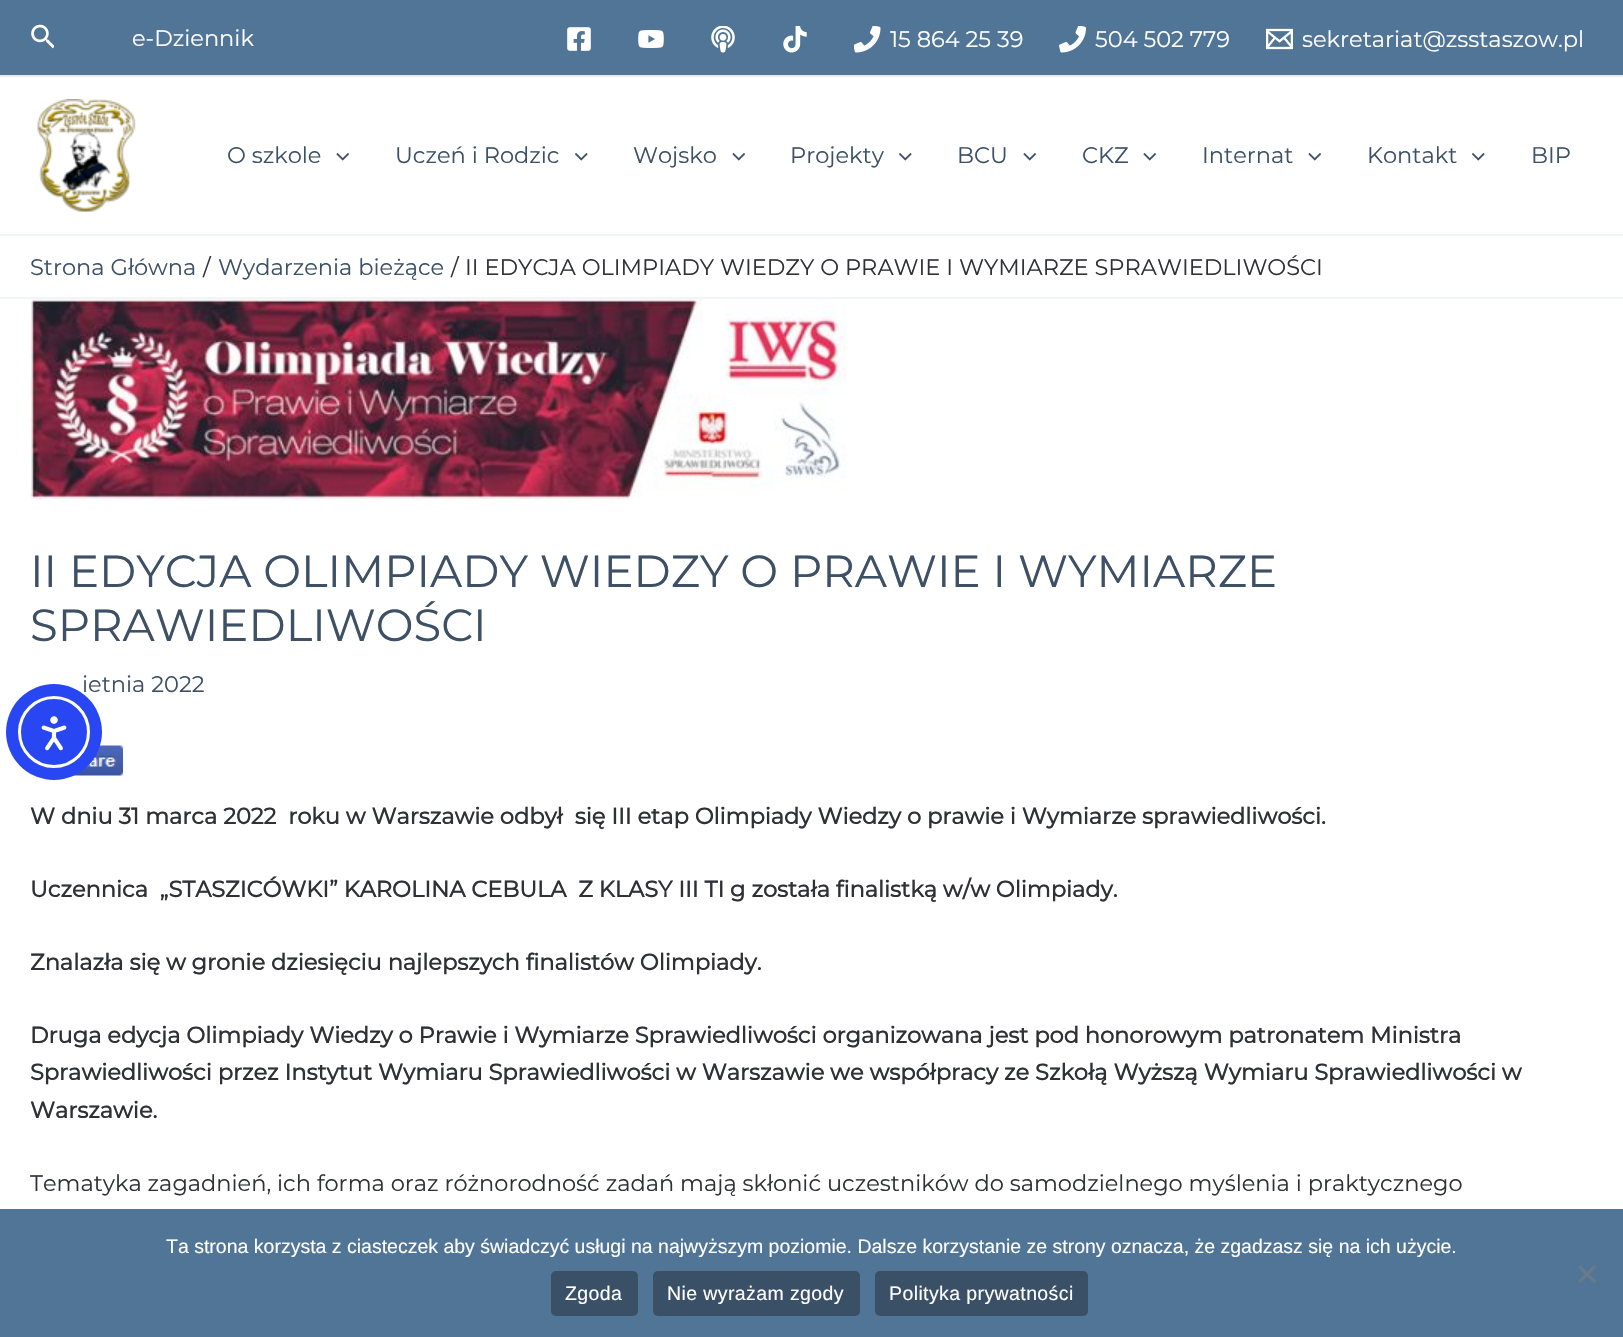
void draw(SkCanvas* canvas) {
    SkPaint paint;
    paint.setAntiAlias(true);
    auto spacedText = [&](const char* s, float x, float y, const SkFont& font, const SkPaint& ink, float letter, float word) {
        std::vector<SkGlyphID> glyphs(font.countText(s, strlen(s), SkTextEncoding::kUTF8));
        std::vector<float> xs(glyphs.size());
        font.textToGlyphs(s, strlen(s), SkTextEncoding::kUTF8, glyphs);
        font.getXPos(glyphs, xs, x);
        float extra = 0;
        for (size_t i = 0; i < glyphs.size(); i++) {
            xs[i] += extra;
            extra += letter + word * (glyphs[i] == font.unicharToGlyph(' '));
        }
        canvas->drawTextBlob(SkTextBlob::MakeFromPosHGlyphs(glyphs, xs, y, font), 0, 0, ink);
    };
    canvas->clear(0xFFFFFFFF);
    paint.setColor(0xFF517596);
    canvas->drawRect(SkRect::MakeXYWH(0, 0, 1623, 75), paint);
    paint.setColor(0xFFEAEAEA);
    canvas->drawRect(SkRect::MakeXYWH(0, 75, 1623, 2), paint);
    canvas->drawImageRect(SkImages::DeferredFromEncodedData(SkData::MakeFromFileName("img1.png")), SkRect::MakeXYWH(31, 24, 23, 25), SkSamplingOptions());
    SkFont font1(fontMgr->matchFamilyStyle("Montserrat", SkFontStyle::Normal()), 22.5f);
    font1.setSubpixel(true);
    paint.setColor(0xFFFFFFFF);
    canvas->drawString("e-Dziennik", 132, 46, font1, paint);
    canvas->drawImageRect(SkImages::DeferredFromEncodedData(SkData::MakeFromFileName("img2.png")), SkRect::MakeXYWH(567, 27, 24, 24), SkSamplingOptions());
    canvas->drawImageRect(SkImages::DeferredFromEncodedData(SkData::MakeFromFileName("img3.png")), SkRect::MakeXYWH(638, 30, 26, 18), SkSamplingOptions());
    canvas->drawImageRect(SkImages::DeferredFromEncodedData(SkData::MakeFromFileName("img4.png")), SkRect::MakeXYWH(711, 26, 24, 27), SkSamplingOptions());
    canvas->drawImageRect(SkImages::DeferredFromEncodedData(SkData::MakeFromFileName("img5.png")), SkRect::MakeXYWH(783, 26, 24, 27), SkSamplingOptions());
    canvas->drawImageRect(SkImages::DeferredFromEncodedData(SkData::MakeFromFileName("img6.png")), SkRect::MakeXYWH(854, 26, 27, 27), SkSamplingOptions());
    canvas->drawString("15 864 25 39", 890, 47, font1, paint);
    canvas->drawImageRect(SkImages::DeferredFromEncodedData(SkData::MakeFromFileName("img7.png")), SkRect::MakeXYWH(1059, 26, 27, 27), SkSamplingOptions());
    canvas->drawString("504 502 779", 1095, 47, font1, paint);
    canvas->drawImageRect(SkImages::DeferredFromEncodedData(SkData::MakeFromFileName("img8.png")), SkRect::MakeXYWH(1266, 28, 27, 22), SkSamplingOptions());
    canvas->drawString("sekretariat@zsstaszow.pl", 1302, 47, font1, paint);
    paint.setColor(0xFFF2F5F7);
    canvas->drawRect(SkRect::MakeXYWH(0, 234, 1623, 2), paint);
    canvas->drawImageRect(SkImages::DeferredFromEncodedData(SkData::MakeFromFileName("img9.png")), SkRect::MakeXYWH(37, 99, 99, 113), SkSamplingOptions());
    paint.setColor(0xFF3D5065);
    canvas->drawString("O szkole", 227, 163, font1, paint);
    canvas->drawImageRect(SkImages::DeferredFromEncodedData(SkData::MakeFromFileName("img10.png")), SkRect::MakeXYWH(336, 153, 14, 8), SkSamplingOptions());
    canvas->drawString("Uczeń i Rodzic", 395, 163, font1, paint);
    canvas->drawImageRect(SkImages::DeferredFromEncodedData(SkData::MakeFromFileName("img11.png")), SkRect::MakeXYWH(575, 153, 13, 8), SkSamplingOptions());
    canvas->drawString("Wojsko", 633, 163, font1, paint);
    canvas->drawImageRect(SkImages::DeferredFromEncodedData(SkData::MakeFromFileName("img10.png")), SkRect::MakeXYWH(732, 153, 14, 8), SkSamplingOptions());
    canvas->drawString("Projekty", 790, 163, font1, paint);
    canvas->drawImageRect(SkImages::DeferredFromEncodedData(SkData::MakeFromFileName("img11.png")), SkRect::MakeXYWH(899, 153, 13, 8), SkSamplingOptions());
    canvas->drawString("BCU", 957, 163, font1, paint);
    canvas->drawImageRect(SkImages::DeferredFromEncodedData(SkData::MakeFromFileName("img10.png")), SkRect::MakeXYWH(1023, 153, 14, 8), SkSamplingOptions());
    canvas->drawString("CKZ", 1082, 163, font1, paint);
    canvas->drawImageRect(SkImages::DeferredFromEncodedData(SkData::MakeFromFileName("img10.png")), SkRect::MakeXYWH(1143, 153, 14, 8), SkSamplingOptions());
    canvas->drawString("Internat", 1202, 163, font1, paint);
    canvas->drawImageRect(SkImages::DeferredFromEncodedData(SkData::MakeFromFileName("img10.png")), SkRect::MakeXYWH(1308, 153, 14, 8), SkSamplingOptions());
    canvas->drawString("Kontakt", 1367, 163, font1, paint);
    canvas->drawImageRect(SkImages::DeferredFromEncodedData(SkData::MakeFromFileName("img11.png")), SkRect::MakeXYWH(1472, 153, 13, 8), SkSamplingOptions());
    canvas->drawString("BIP", 1531, 163, font1, paint);
    paint.setColor(0xFFF2F5F7);
    canvas->drawRect(SkRect::MakeXYWH(0, 297, 1623, 2), paint);
    paint.setColor(0xFF3D5065);
    canvas->drawString("Strona Główna", 30, 275, font1, paint);
    paint.setColor(0xFF2F3137);
    canvas->drawString("/", 203, 275, font1, paint);
    paint.setColor(0xFF3D5065);
    canvas->drawString("Wydarzenia bieżące", 218, 275, font1, paint);
    paint.setColor(0xFF2F3137);
    canvas->drawString("/", 451, 275, font1, paint);
    canvas->drawString("II EDYCJA OLIMPIADY WIEDZY O PRAWIE I WYMIARZE SPRAWIEDLIWOŚCI", 465, 275, font1, paint);
    canvas->drawImageRect(SkImages::DeferredFromEncodedData(SkData::MakeFromFileName("img12.png")), SkRect::MakeXYWH(30, 299, 817, 201), SkSamplingOptions());
    SkFont font2(fontMgr->matchFamilyStyle("Montserrat", SkFontStyle::Normal()), 45);
    font2.setSubpixel(true);
    paint.setColor(0xFF3D5065);
    canvas->drawString("II EDYCJA OLIMPIADY WIEDZY O PRAWIE I WYMIARZE", 30, 587, font2, paint);
    canvas->drawString("SPRAWIEDLIWOŚCI", 30, 641, font2, paint);
    canvas->drawString("ietnia 2022", 82, 692, font1, paint);
    canvas->drawImageRect(SkImages::DeferredFromEncodedData(SkData::MakeFromFileName("img13.png")), SkRect::MakeXYWH(73, 745, 50, 31), SkSamplingOptions());
    SkFont font3(fontMgr->matchFamilyStyle("Montserrat", SkFontStyle::Bold()), 22.5f);
    font3.setSubpixel(true);
    paint.setColor(0xFF2F3137);
    canvas->drawString("W dniu 31 marca 2022  roku w Warszawie odbył  się III etap Olimpiady Wiedzy o prawie i Wymiarze sprawiedliwości.", 30, 824, font3, paint);
    canvas->drawString("Uczennica  „STASZICÓWKI” KAROLINA CEBULA  Z KLASY III TI g została finalistką w/w Olimpiady.", 30, 897, font3, paint);
    canvas->drawString("Znalazła się w gronie dziesięciu najlepszych finalistów Olimpiady.", 30, 970, font3, paint);
    canvas->drawString("Druga edycja Olimpiady Wiedzy o Prawie i Wymiarze Sprawiedliwości organizowana jest pod honorowym patronatem Ministra", 30, 1043, font3, paint);
    canvas->drawString("Sprawiedliwości przez Instytut Wymiaru Sprawiedliwości w Warszawie we współpracy ze Szkołą Wyższą Wymiaru Sprawiedliwości w", 30, 1080, font3, paint);
    canvas->drawString("Warszawie.", 30, 1118, font3, paint);
    canvas->drawString("Tematyka zagadnień, ich forma oraz różnorodność zadań mają skłonić uczestników do samodzielnego myślenia i praktycznego", 30, 1191, font1, paint);
    paint.setColor(0xFF2847F3);
    canvas->drawCircle(54, 732, 48, paint);
    paint.setStyle(SkPaint::kStroke_Style);
    paint.setStrokeWidth(3);
    paint.setColor(0xFFFFFFFF);
    canvas->drawCircle(54, 732, 34.5f, paint);
    canvas->drawImageRect(SkImages::DeferredFromEncodedData(SkData::MakeFromFileName("img14.png")), SkRect::MakeXYWH(41, 716, 26, 35), SkSamplingOptions());
    paint.setStyle(SkPaint::kFill_Style);
    paint.setColor(0xFF517596);
    canvas->drawRect(SkRect::MakeXYWH(0, 1209, 1623, 128), paint);
    SkFont font4(fontMgr->matchFamilyStyle("Liberation Sans", SkFontStyle::Normal()), 19.5f);
    font4.setSubpixel(true);
    paint.setColor(0xFFFFFFFF);
    canvas->drawString("Ta strona korzysta z ciasteczek aby świadczyć usługi na najwyższym poziomie. Dalsze korzystanie ze strony oznacza, że zgadzasz się na ich użycie.", 166, 1253, font4, paint);
    paint.setColor(0xFF697B8B);
    canvas->drawPath(SkPathBuilder().moveTo(1594, 1265).lineTo(1596, 1267.5f).lineTo(1580, 1283.5f).lineTo(1578, 1281).close().detach(), paint);
    canvas->drawPath(SkPathBuilder().moveTo(1578, 1267.5f).lineTo(1580, 1265).lineTo(1596, 1281).lineTo(1594, 1283.5f).close().detach(), paint);
    paint.setColor(0xFF3A5067);
    canvas->drawRoundRect(SkRect::MakeXYWH(551, 1271, 87, 45), 5, 5, paint);
    paint.setColor(0xFFFFFFFF);
    spacedText("Zgoda", 565, 1300, font4, paint, 0.4f, 0);
    paint.setColor(0xFF3A5067);
    canvas->drawRoundRect(SkRect::MakeXYWH(653, 1271, 207, 45), 5, 5, paint);
    paint.setColor(0xFFFFFFFF);
    spacedText("Nie wyrażam zgody", 667, 1300, font4, paint, 0.4f, 0);
    paint.setColor(0xFF3A5067);
    canvas->drawRoundRect(SkRect::MakeXYWH(875, 1271, 213, 45), 5, 5, paint);
    paint.setColor(0xFFFFFFFF);
    spacedText("Polityka prywatności", 889, 1300, font4, paint, 0.4f, 0);
}
